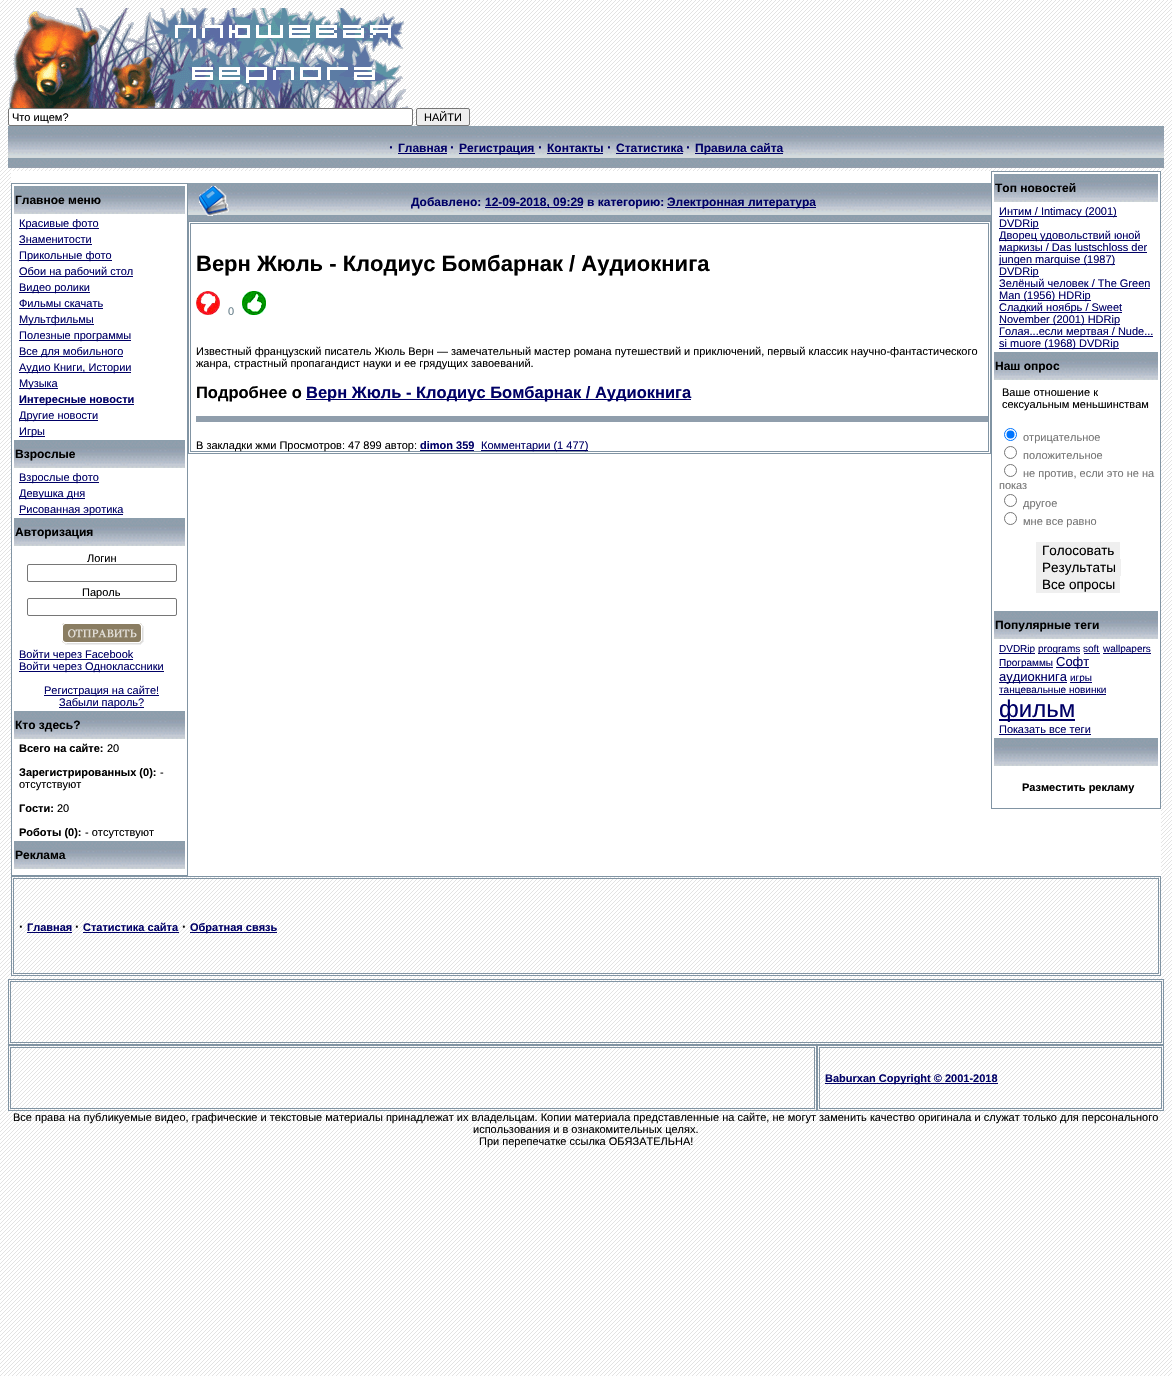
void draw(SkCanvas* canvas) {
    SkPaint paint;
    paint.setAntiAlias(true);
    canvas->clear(0xFFFFFFFF);
    canvas->drawImageRect(SkImages::DeferredFromEncodedData(SkData::MakeFromFileName("img1.png")), SkRect::MakeXYWH(0, 0, 1172, 1376), SkSamplingOptions());
    canvas->drawImageRect(SkImages::DeferredFromEncodedData(SkData::MakeFromFileName("img2.png")), SkRect::MakeXYWH(9, 8, 399, 100), SkSamplingOptions());
    paint.setColor(0xFFFFFFFF);
    canvas->drawRoundRect(SkRect::MakeXYWH(8.5f, 108.5f, 404, 17), 1.5f, 1.5f, paint);
    paint.setStyle(SkPaint::kStroke_Style);
    paint.setStrokeWidth(1);
    paint.setColor(0xFF767676);
    canvas->drawRoundRect(SkRect::MakeXYWH(8.5f, 108.5f, 404, 17), 1.5f, 1.5f, paint);
    SkFont font1(fontMgr->matchFamilyStyle("Liberation Sans", SkFontStyle::Normal()), 11);
    font1.setSubpixel(true);
    paint.setStyle(SkPaint::kFill_Style);
    paint.setColor(0xFF000000);
    canvas->drawString("Что ищем?", 12, 121, font1, paint);
    paint.setColor(0xFFEFEFEF);
    canvas->drawRoundRect(SkRect::MakeXYWH(416.5f, 108.5f, 53, 17), 1.5f, 1.5f, paint);
    paint.setStyle(SkPaint::kStroke_Style);
    paint.setColor(0xFF767676);
    canvas->drawRoundRect(SkRect::MakeXYWH(416.5f, 108.5f, 53, 17), 1.5f, 1.5f, paint);
    paint.setStyle(SkPaint::kFill_Style);
    paint.setColor(0xFF000000);
    canvas->drawString("НАЙТИ", 424, 121, font1, paint);
    canvas->drawImageRect(SkImages::DeferredFromEncodedData(SkData::MakeFromFileName("img3.png")), SkRect::MakeXYWH(8, 126, 1156, 42), SkSamplingOptions());
    SkFont font2(fontMgr->matchFamilyStyle("Liberation Sans", SkFontStyle::Bold()), 14);
    font2.setSubpixel(true);
    paint.setColor(0xFF000066);
    canvas->drawString("·", 389, 152, font2, paint);
    SkFont font3(fontMgr->matchFamilyStyle("Liberation Sans", SkFontStyle::Bold()), 12);
    font3.setSubpixel(true);
    canvas->drawString("Главная", 398, 152, font3, paint);
    canvas->drawRect(SkRect::MakeXYWH(398, 153, 49, 1), paint);
    canvas->drawString("·", 450, 152, font2, paint);
    canvas->drawRect(SkRect::MakeXYWH(459, 153, 76, 1), paint);
    canvas->drawString("Регистрация", 459, 152, font3, paint);
    canvas->drawString("·", 538, 152, font2, paint);
    canvas->drawString("Контакты", 547, 152, font3, paint);
    canvas->drawRect(SkRect::MakeXYWH(547, 153, 56, 1), paint);
    canvas->drawString("·", 607, 152, font2, paint);
    canvas->drawString("Статистика", 616, 152, font3, paint);
    canvas->drawRect(SkRect::MakeXYWH(616, 153, 67, 1), paint);
    canvas->drawString("·", 686, 152, font2, paint);
    canvas->drawRect(SkRect::MakeXYWH(695, 153, 88, 1), paint);
    canvas->drawString("Правила сайта", 695, 152, font3, paint);
    paint.setColor(0xFFFFFFFF);
    canvas->drawRect(SkRect::MakeXYWH(11, 171, 1150, 705), paint);
    paint.setStyle(SkPaint::kStroke_Style);
    paint.setColor(0xFF8194A3);
    canvas->drawRect(SkRect::MakeXYWH(11.5f, 183.5f, 176, 692), paint);
    canvas->drawImageRect(SkImages::DeferredFromEncodedData(SkData::MakeFromFileName("img4.png")), SkRect::MakeXYWH(14, 186, 171, 28), SkSamplingOptions());
    paint.setStyle(SkPaint::kFill_Style);
    paint.setColor(0xFF000000);
    canvas->drawString("Главное меню", 15, 204, font3, paint);
    paint.setColor(0xFF000066);
    canvas->drawRect(SkRect::MakeXYWH(19, 228, 80, 1), paint);
    canvas->drawString("Красивые фото", 19, 227, font1, paint);
    canvas->drawString("Знаменитости", 19, 243, font1, paint);
    canvas->drawRect(SkRect::MakeXYWH(19, 244, 73, 1), paint);
    canvas->drawRect(SkRect::MakeXYWH(19, 260, 93, 1), paint);
    canvas->drawString("Прикольные фото", 19, 259, font1, paint);
    canvas->drawRect(SkRect::MakeXYWH(19, 276, 114, 1), paint);
    canvas->drawString("Обои на рабочий стол", 19, 275, font1, paint);
    canvas->drawRect(SkRect::MakeXYWH(19, 292, 71, 1), paint);
    canvas->drawString("Видео ролики", 19, 291, font1, paint);
    canvas->drawString("Фильмы скачать", 19, 307, font1, paint);
    canvas->drawRect(SkRect::MakeXYWH(19, 308, 84, 1), paint);
    canvas->drawRect(SkRect::MakeXYWH(19, 324, 75, 1), paint);
    canvas->drawString("Мультфильмы", 19, 323, font1, paint);
    canvas->drawRect(SkRect::MakeXYWH(19, 340, 112, 1), paint);
    canvas->drawString("Полезные программы", 19, 339, font1, paint);
    canvas->drawRect(SkRect::MakeXYWH(19, 356, 104, 1), paint);
    canvas->drawString("Все для мобильного", 19, 355, font1, paint);
    canvas->drawRect(SkRect::MakeXYWH(19, 372, 112, 1), paint);
    canvas->drawString("Аудио Книги, Истории", 19, 371, font1, paint);
    canvas->drawRect(SkRect::MakeXYWH(19, 388, 39, 1), paint);
    canvas->drawString("Музыка", 19, 387, font1, paint);
    canvas->drawRect(SkRect::MakeXYWH(19, 404, 115, 1), paint);
    SkFont font4(fontMgr->matchFamilyStyle("Liberation Sans", SkFontStyle::Bold()), 11);
    font4.setSubpixel(true);
    canvas->drawString("Интересные новости", 19, 403, font4, paint);
    canvas->drawRect(SkRect::MakeXYWH(19, 420, 79, 1), paint);
    canvas->drawString("Другие новости", 19, 419, font1, paint);
    canvas->drawRect(SkRect::MakeXYWH(19, 436, 26, 1), paint);
    canvas->drawString("Игры", 19, 435, font1, paint);
    canvas->drawImageRect(SkImages::DeferredFromEncodedData(SkData::MakeFromFileName("img4.png")), SkRect::MakeXYWH(14, 440, 171, 28), SkSamplingOptions());
    paint.setColor(0xFF000000);
    canvas->drawString("Взрослые", 15, 458, font3, paint);
    paint.setColor(0xFF000066);
    canvas->drawRect(SkRect::MakeXYWH(19, 482, 80, 1), paint);
    canvas->drawString("Взрослые фото", 19, 481, font1, paint);
    canvas->drawRect(SkRect::MakeXYWH(19, 498, 66, 1), paint);
    canvas->drawString("Девушка дня", 19, 497, font1, paint);
    canvas->drawRect(SkRect::MakeXYWH(19, 514, 104, 1), paint);
    canvas->drawString("Рисованная эротика", 19, 513, font1, paint);
    canvas->drawImageRect(SkImages::DeferredFromEncodedData(SkData::MakeFromFileName("img4.png")), SkRect::MakeXYWH(14, 518, 171, 28), SkSamplingOptions());
    paint.setColor(0xFF000000);
    canvas->drawString("Авторизация", 15, 536, font3, paint);
    canvas->drawString("Логин", 87, 562, font1, paint);
    paint.setStyle(SkPaint::kStroke_Style);
    paint.setColor(0xFF767676);
    canvas->drawRoundRect(SkRect::MakeXYWH(27.5f, 564.5f, 149, 17), 1.5f, 1.5f, paint);
    paint.setStyle(SkPaint::kFill_Style);
    paint.setColor(0xFF000000);
    canvas->drawString("Пароль", 82, 596, font1, paint);
    paint.setColor(0xFFFFFFFF);
    canvas->drawRoundRect(SkRect::MakeXYWH(27.5f, 598.5f, 149, 17), 1.5f, 1.5f, paint);
    paint.setStyle(SkPaint::kStroke_Style);
    paint.setColor(0xFF767676);
    canvas->drawRoundRect(SkRect::MakeXYWH(27.5f, 598.5f, 149, 17), 1.5f, 1.5f, paint);
    canvas->drawImageRect(SkImages::DeferredFromEncodedData(SkData::MakeFromFileName("img5.png")), SkRect::MakeXYWH(62, 623, 82, 22), SkSamplingOptions());
    paint.setStyle(SkPaint::kFill_Style);
    paint.setColor(0xFF000066);
    canvas->drawRect(SkRect::MakeXYWH(19, 659, 114, 1), paint);
    canvas->drawString("Войти через Facebook", 19, 658, font1, paint);
    canvas->drawRect(SkRect::MakeXYWH(19, 671, 145, 1), paint);
    canvas->drawString("Войти через Одноклассники", 19, 670, font1, paint);
    canvas->drawRect(SkRect::MakeXYWH(44, 695, 115, 1), paint);
    canvas->drawString("Регистрация на сайте!", 44, 694, font1, paint);
    canvas->drawRect(SkRect::MakeXYWH(59, 707, 85, 1), paint);
    canvas->drawString("Забыли пароль?", 59, 706, font1, paint);
    canvas->drawImageRect(SkImages::DeferredFromEncodedData(SkData::MakeFromFileName("img4.png")), SkRect::MakeXYWH(14, 711, 171, 28), SkSamplingOptions());
    paint.setColor(0xFF000000);
    canvas->drawString("Кто здесь?", 15, 729, font3, paint);
    canvas->drawString("Всего на сайте:", 19, 752, font4, paint);
    canvas->drawString("20", 107, 752, font1, paint);
    canvas->drawString("Зарегистрированных (0):", 19, 776, font4, paint);
    canvas->drawString("-", 160, 776, font1, paint);
    canvas->drawString("отсутствуют", 19, 788, font1, paint);
    canvas->drawString("Гости:", 19, 812, font4, paint);
    canvas->drawString("20", 57, 812, font1, paint);
    canvas->drawString("Роботы (0):", 19, 836, font4, paint);
    canvas->drawString("- отсутствуют", 85, 836, font1, paint);
    canvas->drawImageRect(SkImages::DeferredFromEncodedData(SkData::MakeFromFileName("img4.png")), SkRect::MakeXYWH(14, 841, 171, 28), SkSamplingOptions());
    canvas->drawString("Реклама", 15, 859, font3, paint);
    canvas->drawImageRect(SkImages::DeferredFromEncodedData(SkData::MakeFromFileName("img6.png")), SkRect::MakeXYWH(188, 183, 48, 38), SkSamplingOptions());
    canvas->drawImageRect(SkImages::DeferredFromEncodedData(SkData::MakeFromFileName("img7.png")), SkRect::MakeXYWH(199, 186, 30, 30), SkSamplingOptions());
    canvas->drawImageRect(SkImages::DeferredFromEncodedData(SkData::MakeFromFileName("img8.png")), SkRect::MakeXYWH(236, 183, 755, 38), SkSamplingOptions());
    paint.setColor(0xFF000066);
    canvas->drawString("Добавлено:", 411, 206, font3, paint);
    canvas->drawRect(SkRect::MakeXYWH(485, 207, 98, 1), paint);
    canvas->drawString("12-09-2018, 09:29 в категорию:", 485, 206, font3, paint);
    canvas->drawRect(SkRect::MakeXYWH(667, 207, 149, 1), paint);
    canvas->drawString("Электронная литература", 667, 206, font3, paint);
    paint.setStyle(SkPaint::kStroke_Style);
    paint.setColor(0xFF8194A3);
    canvas->drawRect(SkRect::MakeXYWH(188.5f, 221.5f, 802, 232), paint);
    canvas->drawRect(SkRect::MakeXYWH(190.5f, 223.5f, 798, 228), paint);
    SkFont font5(fontMgr->matchFamilyStyle("Liberation Sans", SkFontStyle::Bold()), 22);
    font5.setSubpixel(true);
    paint.setStyle(SkPaint::kFill_Style);
    paint.setColor(0xFF000000);
    canvas->drawString("Верн Жюль - Клодиус Бомбарнак / Аудиокнига", 196, 271, font5, paint);
    canvas->drawImageRect(SkImages::DeferredFromEncodedData(SkData::MakeFromFileName("img9.png")), SkRect::MakeXYWH(196, 291, 24, 24), SkSamplingOptions());
    paint.setColor(0xFF6C838E);
    canvas->drawString("0", 228, 315, font1, paint);
    canvas->drawImageRect(SkImages::DeferredFromEncodedData(SkData::MakeFromFileName("img10.png")), SkRect::MakeXYWH(242, 291, 24, 24), SkSamplingOptions());
    paint.setColor(0xFF000000);
    canvas->drawString("Известный французский писатель Жюль Верн — замечательный мастер романа путешествий и приключений, первый классик научно-фантастического", 196, 355, font1, paint);
    canvas->drawString("жанра, страстный пропагандист науки и ее грядущих завоеваний.", 196, 367, font1, paint);
    SkFont font6(fontMgr->matchFamilyStyle("Liberation Sans", SkFontStyle::Bold()), 16.5f);
    font6.setSubpixel(true);
    canvas->drawString("Подробнее о", 196, 398, font6, paint);
    paint.setColor(0xFF000066);
    canvas->drawRect(SkRect::MakeXYWH(306, 399, 385, 1), paint);
    canvas->drawString("Верн Жюль - Клодиус Бомбарнак / Аудиокнига", 306, 398, font6, paint);
    paint.setColor(0xFF909EAC);
    canvas->drawRect(SkRect::MakeXYWH(196, 416, 792, 6), paint);
    paint.setColor(0xFF000000);
    canvas->drawString("В закладки жми Просмотров: 47 899 автор:", 196, 449, font1, paint);
    paint.setColor(0xFF000066);
    canvas->drawString("dimon 359", 420, 449, font4, paint);
    canvas->drawRect(SkRect::MakeXYWH(420, 450, 54, 1), paint);
    canvas->drawRect(SkRect::MakeXYWH(481, 450, 107, 1), paint);
    canvas->drawString("Комментарии (1 477)", 481, 449, font1, paint);
    paint.setStyle(SkPaint::kStroke_Style);
    paint.setColor(0xFF8194A3);
    canvas->drawRect(SkRect::MakeXYWH(991.5f, 171.5f, 169, 637), paint);
    canvas->drawImageRect(SkImages::DeferredFromEncodedData(SkData::MakeFromFileName("img11.png")), SkRect::MakeXYWH(994, 174, 164, 28), SkSamplingOptions());
    paint.setStyle(SkPaint::kFill_Style);
    paint.setColor(0xFF000000);
    canvas->drawString("Топ новостей", 995, 192, font3, paint);
    paint.setColor(0xFF000066);
    canvas->drawRect(SkRect::MakeXYWH(999, 216, 118, 1), paint);
    canvas->drawString("Интим / Intimacy (2001)", 999, 215, font1, paint);
    canvas->drawRect(SkRect::MakeXYWH(999, 228, 40, 1), paint);
    canvas->drawString("DVDRip", 999, 227, font1, paint);
    canvas->drawRect(SkRect::MakeXYWH(999, 240, 141, 1), paint);
    canvas->drawString("Дворец удовольствий юной", 999, 239, font1, paint);
    canvas->drawRect(SkRect::MakeXYWH(999, 252, 148, 1), paint);
    canvas->drawString("маркизы / Das lustschloss der", 999, 251, font1, paint);
    canvas->drawRect(SkRect::MakeXYWH(999, 264, 116, 1), paint);
    canvas->drawString("jungen marquise (1987)", 999, 263, font1, paint);
    canvas->drawRect(SkRect::MakeXYWH(999, 276, 40, 1), paint);
    canvas->drawString("DVDRip", 999, 275, font1, paint);
    canvas->drawString("Зелёный человек / The Green", 999, 287, font1, paint);
    canvas->drawRect(SkRect::MakeXYWH(999, 288, 151, 1), paint);
    canvas->drawRect(SkRect::MakeXYWH(999, 300, 92, 1), paint);
    canvas->drawString("Man (1956) HDRip", 999, 299, font1, paint);
    canvas->drawRect(SkRect::MakeXYWH(999, 312, 123, 1), paint);
    canvas->drawString("Сладкий ноябрь / Sweet", 999, 311, font1, paint);
    canvas->drawRect(SkRect::MakeXYWH(999, 324, 121, 1), paint);
    canvas->drawString("November (2001) HDRip", 999, 323, font1, paint);
    canvas->drawRect(SkRect::MakeXYWH(999, 336, 154, 1), paint);
    canvas->drawString("Голая...если мертвая / Nude...", 999, 335, font1, paint);
    canvas->drawRect(SkRect::MakeXYWH(999, 348, 120, 1), paint);
    canvas->drawString("si muore (1968) DVDRip", 999, 347, font1, paint);
    canvas->drawImageRect(SkImages::DeferredFromEncodedData(SkData::MakeFromFileName("img11.png")), SkRect::MakeXYWH(994, 352, 164, 28), SkSamplingOptions());
    paint.setColor(0xFF000000);
    canvas->drawString("Наш опрос", 995, 370, font3, paint);
    canvas->drawString("Ваше отношение к", 1002, 396, font1, paint);
    canvas->drawString("сексуальным меньшинствам", 1002, 408, font1, paint);
    paint.setStyle(SkPaint::kStroke_Style);
    paint.setColor(0xFF0075FF);
    canvas->drawCircle(1010.5f, 434.5f, 6, paint);
    paint.setStyle(SkPaint::kFill_Style);
    canvas->drawCircle(1010.5f, 434.5f, 4, paint);
    paint.setColor(0xFF757575);
    canvas->drawString("отрицательное", 1023, 441, font1, paint);
    paint.setStyle(SkPaint::kStroke_Style);
    paint.setColor(0xFF767676);
    canvas->drawCircle(1010.5f, 452.5f, 6, paint);
    paint.setStyle(SkPaint::kFill_Style);
    paint.setColor(0xFF757575);
    canvas->drawString("положительное", 1023, 459, font1, paint);
    paint.setStyle(SkPaint::kStroke_Style);
    paint.setColor(0xFF767676);
    canvas->drawCircle(1010.5f, 470.5f, 6, paint);
    paint.setStyle(SkPaint::kFill_Style);
    paint.setColor(0xFF757575);
    canvas->drawString("не против, если это не на", 1023, 477, font1, paint);
    canvas->drawString("показ", 999, 489, font1, paint);
    paint.setStyle(SkPaint::kStroke_Style);
    paint.setColor(0xFF767676);
    canvas->drawCircle(1010.5f, 500.5f, 6, paint);
    paint.setStyle(SkPaint::kFill_Style);
    paint.setColor(0xFF757575);
    canvas->drawString("другое", 1023, 507, font1, paint);
    paint.setStyle(SkPaint::kStroke_Style);
    paint.setColor(0xFF767676);
    canvas->drawCircle(1010.5f, 518.5f, 6, paint);
    paint.setStyle(SkPaint::kFill_Style);
    paint.setColor(0xFF757575);
    canvas->drawString("мне все равно", 1023, 525, font1, paint);
    paint.setColor(0xFFEFEFEF);
    canvas->drawRect(SkRect::MakeXYWH(1036, 542, 84, 17), paint);
    SkFont font7(fontMgr->matchFamilyStyle("Liberation Sans", SkFontStyle::Normal()), 13.5f);
    font7.setSubpixel(true);
    paint.setColor(0xFF000000);
    canvas->drawString("Голосовать", 1042, 555, font7, paint);
    paint.setColor(0xFFEFEFEF);
    canvas->drawRect(SkRect::MakeXYWH(1036, 559, 85, 17), paint);
    paint.setColor(0xFF000000);
    canvas->drawString("Результаты", 1042, 572, font7, paint);
    paint.setColor(0xFFEFEFEF);
    canvas->drawRect(SkRect::MakeXYWH(1036, 576, 84, 17), paint);
    paint.setColor(0xFF000000);
    canvas->drawString("Все опросы", 1042, 589, font7, paint);
    canvas->drawImageRect(SkImages::DeferredFromEncodedData(SkData::MakeFromFileName("img11.png")), SkRect::MakeXYWH(994, 611, 164, 28), SkSamplingOptions());
    canvas->drawString("Популярные теги", 995, 629, font3, paint);
    paint.setColor(0xFF000066);
    canvas->drawRect(SkRect::MakeXYWH(999, 653, 36, 1), paint);
    SkFont font8(fontMgr->matchFamilyStyle("Liberation Sans", SkFontStyle::Normal()), 10);
    font8.setSubpixel(true);
    canvas->drawString("DVDRip", 999, 652, font8, paint);
    canvas->drawRect(SkRect::MakeXYWH(1038, 653, 42, 1), paint);
    canvas->drawString("programs soft", 1038, 652, font8, paint);
    canvas->drawRect(SkRect::MakeXYWH(1103, 653, 48, 1), paint);
    canvas->drawString("wallpapers", 1103, 652, font8, paint);
    canvas->drawRect(SkRect::MakeXYWH(1084, 653, 16, 1), paint);
    canvas->drawRect(SkRect::MakeXYWH(999, 667, 54, 1), paint);
    canvas->drawString("Программы", 999, 666, font8, paint);
    canvas->drawRect(SkRect::MakeXYWH(1056, 667, 33, 1), paint);
    SkFont font9(fontMgr->matchFamilyStyle("Liberation Sans", SkFontStyle::Normal()), 13);
    font9.setSubpixel(true);
    canvas->drawString("Софт", 1056, 666, font9, paint);
    canvas->drawRect(SkRect::MakeXYWH(999, 682, 68, 1), paint);
    canvas->drawString("аудиокнига", 999, 681, font9, paint);
    canvas->drawRect(SkRect::MakeXYWH(1070, 682, 22, 1), paint);
    canvas->drawString("игры", 1070, 681, font8, paint);
    canvas->drawRect(SkRect::MakeXYWH(999, 694, 107, 1), paint);
    canvas->drawString("танцевальные новинки", 999, 693, font8, paint);
    canvas->drawRect(SkRect::MakeXYWH(999, 719, 76, 2), paint);
    SkFont font10(fontMgr->matchFamilyStyle("Liberation Sans", SkFontStyle::Normal()), 24);
    font10.setSubpixel(true);
    canvas->drawString("фильм", 999, 717, font10, paint);
    canvas->drawString("Показать все теги", 999, 733, font1, paint);
    canvas->drawRect(SkRect::MakeXYWH(999, 734, 92, 1), paint);
    canvas->drawImageRect(SkImages::DeferredFromEncodedData(SkData::MakeFromFileName("img11.png")), SkRect::MakeXYWH(994, 738, 164, 28), SkSamplingOptions());
    paint.setColor(0xFF000000);
    canvas->drawString("Разместить рекламу", 1022, 791, font4, paint);
    paint.setStyle(SkPaint::kStroke_Style);
    paint.setColor(0xFF8194A3);
    canvas->drawRect(SkRect::MakeXYWH(11.5f, 876.5f, 1149, 99), paint);
    canvas->drawRect(SkRect::MakeXYWH(13.5f, 878.5f, 1145, 95), paint);
    SkFont font11(fontMgr->matchFamilyStyle("Liberation Sans", SkFontStyle::Bold()), 13);
    font11.setSubpixel(true);
    paint.setStyle(SkPaint::kFill_Style);
    paint.setColor(0xFF000000);
    canvas->drawString("·", 19, 931, font11, paint);
    paint.setColor(0xFF000066);
    canvas->drawString("Главная", 27, 931, font4, paint);
    canvas->drawRect(SkRect::MakeXYWH(27, 932, 45, 1), paint);
    paint.setColor(0xFF000000);
    canvas->drawString("·", 75, 931, font11, paint);
    paint.setColor(0xFF000066);
    canvas->drawString("Статистика сайта", 83, 931, font4, paint);
    canvas->drawRect(SkRect::MakeXYWH(83, 932, 96, 1), paint);
    paint.setColor(0xFF000000);
    canvas->drawString("·", 182, 931, font11, paint);
    paint.setColor(0xFF000066);
    canvas->drawRect(SkRect::MakeXYWH(190, 932, 87, 1), paint);
    canvas->drawString("Обратная связь", 190, 931, font4, paint);
    paint.setStyle(SkPaint::kStroke_Style);
    paint.setColor(0xFF8194A3);
    canvas->drawRect(SkRect::MakeXYWH(8.5f, 979.5f, 1155, 65), paint);
    canvas->drawRect(SkRect::MakeXYWH(10.5f, 981.5f, 1151, 61), paint);
    canvas->drawRect(SkRect::MakeXYWH(8.5f, 1045.5f, 808, 65), paint);
    canvas->drawRect(SkRect::MakeXYWH(10.5f, 1047.5f, 804, 61), paint);
    canvas->drawRect(SkRect::MakeXYWH(817.5f, 1045.5f, 346, 65), paint);
    canvas->drawRect(SkRect::MakeXYWH(819.5f, 1047.5f, 342, 61), paint);
    paint.setStyle(SkPaint::kFill_Style);
    paint.setColor(0xFF000066);
    canvas->drawRect(SkRect::MakeXYWH(825, 1083, 173, 1), paint);
    canvas->drawString("Baburxan Copyright © 2001-2018", 825, 1082, font4, paint);
    paint.setColor(0xFF000000);
    canvas->drawString("Все права на публикуемые видео, графические и текстовые материалы принадлежат их владельцам. Копии материала представленные на сайте, не могут заменить качество оригинала и служат только для персонального", 13, 1121, font1, paint);
    canvas->drawString("использования и в ознакомительных целях.", 473, 1133, font1, paint);
    canvas->drawString("При перепечатке ссылка ОБЯЗАТЕЛЬНА!", 479, 1145, font1, paint);
}
